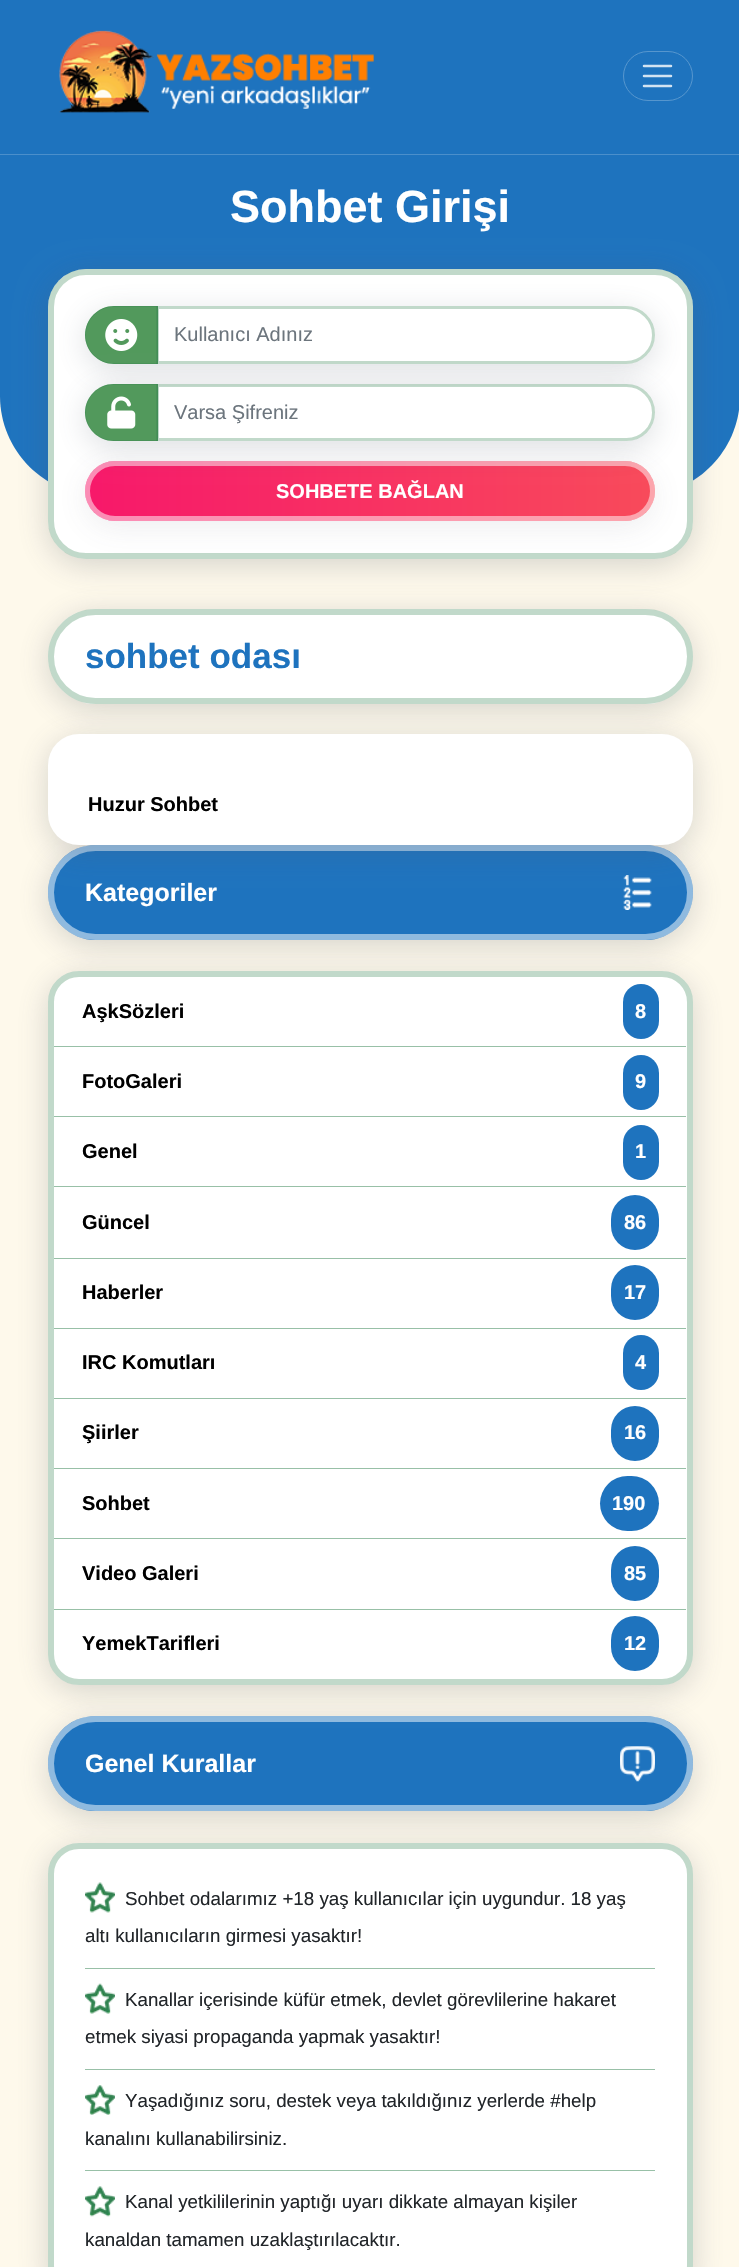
void draw(SkCanvas* canvas) {
    SkPaint paint;
    paint.setAntiAlias(true);
    canvas->clear(0xFFFEF9EB);
    paint.setColor(0xFF1E73BE);
    canvas->drawRect(SkRect::MakeXYWH(0, 0, 739, 154), paint);
    paint.setColor(0xFF4B8FCB);
    canvas->drawRect(SkRect::MakeXYWH(0, 154, 739, 1), paint);
    canvas->drawImageRect(SkImages::DeferredFromEncodedData(SkData::MakeFromFileName("img1.png")), SkRect::MakeXYWH(59, 30, 315, 83), SkSamplingOptions());
    paint.setStyle(SkPaint::kStroke_Style);
    paint.setStrokeWidth(1);
    paint.setColor(0xFF5696CE);
    canvas->drawRoundRect(SkRect::MakeXYWH(623.5f, 51.5f, 69, 49), 24.5f, 24.5f, paint);
    paint.setStrokeWidth(2.5f);
    paint.setStrokeCap(SkPaint::kRound_Cap);
    paint.setColor(0xFFD2E3F2);
    canvas->drawPath(SkPathBuilder().moveTo(644, 66).lineTo(671, 66).moveTo(644, 76).lineTo(671, 76).moveTo(644, 86).lineTo(671, 86).detach(), paint);
    paint.setStyle(SkPaint::kFill_Style);
    paint.setColor(0xFF1E73BE);
    canvas->drawPath(SkPathBuilder().moveTo(0, 155).lineTo(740, 155).lineTo(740, 396).cubicTo(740, 451, 695, 496, 640, 496).lineTo(100, 496).cubicTo(45, 496, 0, 451, 0, 396).close().detach(), paint);
    SkFont font1(fontMgr->matchFamilyStyle("Liberation Sans", SkFontStyle::Bold()), 45);
    font1.setSubpixel(true);
    paint.setColor(0xFFFFFFFF);
    canvas->drawString("Sohbet Girişi", 230, 222, font1, paint);
    paint.setColor(0x40565D6D);
    paint.setMaskFilter(SkMaskFilter::MakeBlur(kNormal_SkBlurStyle, 15.5f));
    canvas->drawRoundRect(SkRect::MakeXYWH(48, 275, 645, 290), 38, 38, paint);
    paint.setMaskFilter(nullptr);
    paint.setColor(0xFFFFFFFF);
    canvas->drawRoundRect(SkRect::MakeXYWH(48, 269, 645, 290), 38, 38, paint);
    paint.setStyle(SkPaint::kStroke_Style);
    paint.setStrokeWidth(6);
    paint.setStrokeCap(SkPaint::kButt_Cap);
    paint.setColor(0x4D31824F);
    canvas->drawRoundRect(SkRect::MakeXYWH(51, 272, 639, 284), 35, 35, paint);
    canvas->save();
    canvas->clipPath(SkPathBuilder(SkPathFillType::kEvenOdd).moveTo(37, 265).lineTo(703, 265).lineTo(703, 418).lineTo(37, 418).close().moveTo(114, 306).lineTo(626, 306).cubicTo(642, 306, 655, 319, 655, 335).cubicTo(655, 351, 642, 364, 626, 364).lineTo(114, 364).cubicTo(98, 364, 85, 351, 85, 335).cubicTo(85, 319, 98, 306, 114, 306).close().detach(), true);
    paint.setStyle(SkPaint::kFill_Style);
    paint.setColor(0x33565D6D);
    paint.setMaskFilter(SkMaskFilter::MakeBlur(kNormal_SkBlurStyle, 15.5f));
    canvas->drawRoundRect(SkRect::MakeXYWH(85, 313, 570, 57), 28.5f, 28.5f, paint);
    paint.setMaskFilter(nullptr);
    canvas->restore();
    paint.setColor(0xFF52995C);
    canvas->drawPath(SkPathBuilder().moveTo(114, 306).lineTo(158, 306).lineTo(158, 364).lineTo(114, 364).cubicTo(98, 364, 85, 351, 85, 335).cubicTo(85, 319, 98, 306, 114, 306).close().detach(), paint);
    paint.setStyle(SkPaint::kStroke_Style);
    paint.setStrokeWidth(1);
    paint.setColor(0x4D31824F);
    canvas->drawPath(SkPathBuilder().moveTo(114, 306.5f).lineTo(157.5f, 306.5f).lineTo(157.5f, 363.5f).lineTo(114, 363.5f).cubicTo(98.5f, 363.5f, 85.5f, 350.5f, 85.5f, 335).cubicTo(85.5f, 319.5f, 98.5f, 306.5f, 114, 306.5f).close().detach(), paint);
    canvas->drawImageRect(SkImages::DeferredFromEncodedData(SkData::MakeFromFileName("img2.png")), SkRect::MakeXYWH(105, 319, 33, 32), SkSamplingOptions());
    paint.setStrokeWidth(3);
    canvas->drawPath(SkPathBuilder().moveTo(157.5f, 307.5f).lineTo(626, 307.5f).cubicTo(641, 307.5f, 653.5f, 320, 653.5f, 335).cubicTo(653.5f, 350, 641, 362.5f, 626, 362.5f).lineTo(157.5f, 362.5f).close().detach(), paint);
    SkFont font2(fontMgr->matchFamilyStyle("Liberation Sans", SkFontStyle::Normal()), 20);
    font2.setSubpixel(true);
    paint.setStyle(SkPaint::kFill_Style);
    paint.setColor(0xFF6C757D);
    canvas->drawString("Kullanıcı Adınız", 174, 341, font2, paint);
    paint.setColor(0x1A565D6D);
    paint.setMaskFilter(SkMaskFilter::MakeBlur(kNormal_SkBlurStyle, 15.5f));
    canvas->drawRoundRect(SkRect::MakeXYWH(85, 468, 570, 60), 30, 30, paint);
    paint.setMaskFilter(nullptr);
    {
        const SkColor colors[] = {0xFFF7186A, 0xFFFBB03B};
        const float stops[] = {0, 1};
        const SkPoint ends[] = {{85, 491}, {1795, 491}};
        paint.setShader(SkGradientShader::MakeLinear(ends, colors, stops, 2, SkTileMode::kClamp));
        paint.setAlpha(255);
    }
    canvas->drawRoundRect(SkRect::MakeXYWH(85, 461, 570, 60), 30, 30, paint);
    paint.setStyle(SkPaint::kStroke_Style);
    paint.setStrokeWidth(5);
    paint.setShader(nullptr);
    paint.setColor(0x80FFFFFF);
    canvas->drawRoundRect(SkRect::MakeXYWH(87.5f, 463.5f, 565, 55), 27.5f, 27.5f, paint);
    canvas->save();
    canvas->clipPath(SkPathBuilder(SkPathFillType::kEvenOdd).moveTo(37, 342).lineTo(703, 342).lineTo(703, 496).lineTo(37, 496).close().moveTo(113.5f, 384).lineTo(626.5f, 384).cubicTo(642, 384, 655, 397, 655, 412.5f).cubicTo(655, 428, 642, 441, 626.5f, 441).lineTo(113.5f, 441).cubicTo(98, 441, 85, 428, 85, 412.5f).cubicTo(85, 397, 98, 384, 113.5f, 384).close().detach(), true);
    paint.setStyle(SkPaint::kFill_Style);
    paint.setColor(0x33565D6D);
    paint.setMaskFilter(SkMaskFilter::MakeBlur(kNormal_SkBlurStyle, 15.5f));
    canvas->drawRoundRect(SkRect::MakeXYWH(85, 390, 570, 58), 29, 29, paint);
    paint.setMaskFilter(nullptr);
    canvas->restore();
    paint.setColor(0xFF52995C);
    canvas->drawPath(SkPathBuilder().moveTo(113.5f, 384).lineTo(158, 384).lineTo(158, 441).lineTo(113.5f, 441).cubicTo(98, 441, 85, 428, 85, 412.5f).cubicTo(85, 397, 98, 384, 113.5f, 384).close().detach(), paint);
    paint.setStyle(SkPaint::kStroke_Style);
    paint.setStrokeWidth(1);
    paint.setColor(0x4D31824F);
    canvas->drawPath(SkPathBuilder().moveTo(113.5f, 384.5f).lineTo(157.5f, 384.5f).lineTo(157.5f, 440.5f).lineTo(113.5f, 440.5f).cubicTo(98, 440.5f, 85.5f, 428, 85.5f, 412.5f).cubicTo(85.5f, 397, 98, 384.5f, 113.5f, 384.5f).close().detach(), paint);
    canvas->drawImageRect(SkImages::DeferredFromEncodedData(SkData::MakeFromFileName("img3.png")), SkRect::MakeXYWH(107, 396, 29, 33), SkSamplingOptions());
    paint.setStyle(SkPaint::kFill_Style);
    paint.setColor(0xFFFFFFFF);
    canvas->drawPath(SkPathBuilder().moveTo(159, 386).lineTo(626.5f, 386).cubicTo(641, 386, 653, 398, 653, 412.5f).cubicTo(653, 427, 641, 439, 626.5f, 439).lineTo(159, 439).close().detach(), paint);
    paint.setStyle(SkPaint::kStroke_Style);
    paint.setStrokeWidth(3);
    paint.setColor(0x4D31824F);
    canvas->drawPath(SkPathBuilder().moveTo(157.5f, 385.5f).lineTo(626.5f, 385.5f).cubicTo(641.5f, 385.5f, 653.5f, 397.5f, 653.5f, 412.5f).cubicTo(653.5f, 427.5f, 641.5f, 439.5f, 626.5f, 439.5f).lineTo(157.5f, 439.5f).close().detach(), paint);
    paint.setStyle(SkPaint::kFill_Style);
    paint.setColor(0xFF6C757D);
    canvas->drawString("Varsa Şifreniz", 174, 419, font2, paint);
    SkFont font3(fontMgr->matchFamilyStyle("Liberation Sans", SkFontStyle::Bold()), 20);
    font3.setSubpixel(true);
    paint.setColor(0xFFFFFFFF);
    canvas->drawString("SOHBETE BAĞLAN", 276, 498, font3, paint);
    paint.setColor(0x40565D6D);
    paint.setMaskFilter(SkMaskFilter::MakeBlur(kNormal_SkBlurStyle, 15.5f));
    canvas->drawRoundRect(SkRect::MakeXYWH(48, 615, 645, 95), 47.5f, 47.5f, paint);
    paint.setMaskFilter(nullptr);
    paint.setColor(0xFFFFFFFF);
    canvas->drawRoundRect(SkRect::MakeXYWH(48, 609, 645, 95), 47.5f, 47.5f, paint);
    paint.setStyle(SkPaint::kStroke_Style);
    paint.setStrokeWidth(6);
    paint.setColor(0x4D31824F);
    canvas->drawRoundRect(SkRect::MakeXYWH(51, 612, 639, 89), 44.5f, 44.5f, paint);
    SkFont font4(fontMgr->matchFamilyStyle("Liberation Sans", SkFontStyle::Bold()), 35);
    font4.setSubpixel(true);
    paint.setStyle(SkPaint::kFill_Style);
    paint.setColor(0xFF1E73BE);
    canvas->drawString("sohbet odası", 85, 668, font4, paint);
    paint.setColor(0x40565D6D);
    paint.setMaskFilter(SkMaskFilter::MakeBlur(kNormal_SkBlurStyle, 15.5f));
    canvas->drawRoundRect(SkRect::MakeXYWH(48, 851, 645, 95), 47.5f, 47.5f, paint);
    paint.setMaskFilter(nullptr);
    paint.setColor(0xFF1E73BE);
    canvas->drawRoundRect(SkRect::MakeXYWH(48, 845, 645, 95), 47.5f, 47.5f, paint);
    paint.setStyle(SkPaint::kStroke_Style);
    paint.setColor(0x80FFFFFF);
    canvas->drawRoundRect(SkRect::MakeXYWH(51, 848, 639, 89), 44.5f, 44.5f, paint);
    canvas->drawImageRect(SkImages::DeferredFromEncodedData(SkData::MakeFromFileName("img4.png")), SkRect::MakeXYWH(623, 875, 29, 35), SkSamplingOptions());
    paint.setStyle(SkPaint::kFill_Style);
    paint.setColor(0x40565D6D);
    paint.setMaskFilter(SkMaskFilter::MakeBlur(kNormal_SkBlurStyle, 15.5f));
    canvas->drawRoundRect(SkRect::MakeXYWH(48, 740, 645, 111), 31, 31, paint);
    paint.setMaskFilter(nullptr);
    paint.setColor(0xFFFFFFFF);
    canvas->drawRoundRect(SkRect::MakeXYWH(48, 734, 645, 111), 31, 31, paint);
    paint.setColor(0xFF000000);
    canvas->drawString("Huzur Sohbet", 88, 811, font3, paint);
    SkFont font5(fontMgr->matchFamilyStyle("Liberation Sans", SkFontStyle::Bold()), 25);
    font5.setSubpixel(true);
    paint.setColor(0xFFFFFFFF);
    canvas->drawString("Kategoriler", 85, 901, font5, paint);
    paint.setColor(0x40565D6D);
    paint.setMaskFilter(SkMaskFilter::MakeBlur(kNormal_SkBlurStyle, 15.5f));
    canvas->drawRoundRect(SkRect::MakeXYWH(48, 1723, 645, 95), 47.5f, 47.5f, paint);
    paint.setMaskFilter(nullptr);
    paint.setColor(0xFF1E73BE);
    canvas->drawRoundRect(SkRect::MakeXYWH(48, 1716, 645, 95), 47.5f, 47.5f, paint);
    paint.setStyle(SkPaint::kStroke_Style);
    paint.setColor(0x80FFFFFF);
    canvas->drawRoundRect(SkRect::MakeXYWH(51, 1719, 639, 89), 44.5f, 44.5f, paint);
    paint.setStyle(SkPaint::kFill_Style);
    paint.setColor(0x40565D6D);
    paint.setMaskFilter(SkMaskFilter::MakeBlur(kNormal_SkBlurStyle, 15.5f));
    canvas->drawRoundRect(SkRect::MakeXYWH(48, 978, 645, 713), 31, 31, paint);
    paint.setMaskFilter(nullptr);
    paint.setColor(0xFFFFFFFF);
    canvas->drawRoundRect(SkRect::MakeXYWH(48, 971, 645, 714), 31, 31, paint);
    paint.setStyle(SkPaint::kStroke_Style);
    paint.setColor(0x4D31824F);
    canvas->drawRoundRect(SkRect::MakeXYWH(51, 974, 639, 708), 28, 28, paint);
    paint.setStyle(SkPaint::kFill_Style);
    paint.setColor(0xFF000000);
    canvas->drawString("AşkSözleri", 82, 1018, font3, paint);
    paint.setColor(0xFF1E73BE);
    canvas->drawRoundRect(SkRect::MakeXYWH(623, 984, 36, 55), 18, 18, paint);
    paint.setColor(0xFFFFFFFF);
    canvas->drawString("8", 635, 1018, font3, paint);
    paint.setColor(0xFF98C0A7);
    canvas->drawRect(SkRect::MakeXYWH(54, 1046, 632, 1), paint);
    paint.setColor(0xFF000000);
    canvas->drawString("FotoGaleri", 82, 1088, font3, paint);
    paint.setColor(0xFF1E73BE);
    canvas->drawRoundRect(SkRect::MakeXYWH(623, 1055, 36, 55), 18, 18, paint);
    paint.setColor(0xFFFFFFFF);
    canvas->drawString("9", 635, 1088, font3, paint);
    paint.setColor(0xFF98C0A7);
    canvas->drawRect(SkRect::MakeXYWH(54, 1116, 632, 1), paint);
    paint.setColor(0xFF000000);
    canvas->drawString("Genel", 82, 1158, font3, paint);
    paint.setColor(0xFF1E73BE);
    canvas->drawRoundRect(SkRect::MakeXYWH(623, 1125, 36, 55), 18, 18, paint);
    paint.setColor(0xFFFFFFFF);
    canvas->drawString("1", 635, 1158, font3, paint);
    paint.setColor(0xFF98C0A7);
    canvas->drawRect(SkRect::MakeXYWH(54, 1186, 632, 1), paint);
    paint.setColor(0xFF000000);
    canvas->drawString("Güncel", 82, 1229, font3, paint);
    paint.setColor(0xFF1E73BE);
    canvas->drawRoundRect(SkRect::MakeXYWH(611, 1195, 48, 55), 24, 24, paint);
    paint.setColor(0xFFFFFFFF);
    canvas->drawString("86", 624, 1229, font3, paint);
    paint.setColor(0xFF98C0A7);
    canvas->drawRect(SkRect::MakeXYWH(54, 1258, 632, 1), paint);
    paint.setColor(0xFF000000);
    canvas->drawString("Haberler", 82, 1299, font3, paint);
    paint.setColor(0xFF1E73BE);
    canvas->drawRoundRect(SkRect::MakeXYWH(611, 1265, 48, 55), 24, 24, paint);
    paint.setColor(0xFFFFFFFF);
    canvas->drawString("17", 624, 1299, font3, paint);
    paint.setColor(0xFF98C0A7);
    canvas->drawRect(SkRect::MakeXYWH(54, 1328, 632, 1), paint);
    paint.setColor(0xFF000000);
    canvas->drawString("IRC Komutları", 82, 1369, font3, paint);
    paint.setColor(0xFF1E73BE);
    canvas->drawRoundRect(SkRect::MakeXYWH(623, 1335, 36, 55), 18, 18, paint);
    paint.setColor(0xFFFFFFFF);
    canvas->drawString("4", 635, 1369, font3, paint);
    paint.setColor(0xFF98C0A7);
    canvas->drawRect(SkRect::MakeXYWH(54, 1398, 632, 1), paint);
    paint.setColor(0xFF000000);
    canvas->drawString("Şiirler", 82, 1439, font3, paint);
    paint.setColor(0xFF1E73BE);
    canvas->drawRoundRect(SkRect::MakeXYWH(611, 1406, 48, 55), 24, 24, paint);
    paint.setColor(0xFFFFFFFF);
    canvas->drawString("16", 624, 1439, font3, paint);
    paint.setColor(0xFF98C0A7);
    canvas->drawRect(SkRect::MakeXYWH(54, 1468, 632, 1), paint);
    paint.setColor(0xFF000000);
    canvas->drawString("Sohbet", 82, 1510, font3, paint);
    paint.setColor(0xFF1E73BE);
    canvas->drawRoundRect(SkRect::MakeXYWH(600, 1476, 59, 55), 27.5f, 27.5f, paint);
    paint.setColor(0xFFFFFFFF);
    canvas->drawString("190", 612, 1510, font3, paint);
    paint.setColor(0xFF98C0A7);
    canvas->drawRect(SkRect::MakeXYWH(54, 1538, 632, 1), paint);
    paint.setColor(0xFF000000);
    canvas->drawString("Video Galeri", 82, 1580, font3, paint);
    paint.setColor(0xFF1E73BE);
    canvas->drawRoundRect(SkRect::MakeXYWH(611, 1546, 48, 55), 24, 24, paint);
    paint.setColor(0xFFFFFFFF);
    canvas->drawString("85", 624, 1580, font3, paint);
    paint.setColor(0xFF98C0A7);
    canvas->drawRect(SkRect::MakeXYWH(54, 1609, 632, 1), paint);
    paint.setColor(0xFF000000);
    canvas->drawString("YemekTarifleri", 82, 1650, font3, paint);
    paint.setColor(0xFF1E73BE);
    canvas->drawRoundRect(SkRect::MakeXYWH(611, 1616, 48, 55), 24, 24, paint);
    paint.setColor(0xFFFFFFFF);
    canvas->drawString("12", 624, 1650, font3, paint);
    canvas->drawString("Genel Kurallar", 85, 1772, font5, paint);
    canvas->drawImageRect(SkImages::DeferredFromEncodedData(SkData::MakeFromFileName("img5.png")), SkRect::MakeXYWH(620, 1746, 35, 36), SkSamplingOptions());
    paint.setColor(0x40565D6D);
    paint.setMaskFilter(SkMaskFilter::MakeBlur(kNormal_SkBlurStyle, 15.5f));
    canvas->drawRoundRect(SkRect::MakeXYWH(48, 1849, 645, 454), 31, 31, paint);
    paint.setMaskFilter(nullptr);
    paint.setColor(0xFFFFFFFF);
    canvas->drawRoundRect(SkRect::MakeXYWH(48, 1843, 645, 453), 31, 31, paint);
    paint.setStyle(SkPaint::kStroke_Style);
    paint.setColor(0x4D31824F);
    canvas->drawRoundRect(SkRect::MakeXYWH(51, 1846, 639, 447), 28, 28, paint);
    canvas->drawImageRect(SkImages::DeferredFromEncodedData(SkData::MakeFromFileName("img6.png")), SkRect::MakeXYWH(85, 1882, 30, 31), SkSamplingOptions());
    SkFont font6(fontMgr->matchFamilyStyle("Liberation Sans", SkFontStyle::Normal()), 18.75f);
    font6.setSubpixel(true);
    paint.setStyle(SkPaint::kFill_Style);
    paint.setColor(0xFF212529);
    canvas->drawString("Sohbet odalarımız +18 yaş kullanıcılar için uygundur. 18 yaş", 125, 1905, font6, paint);
    canvas->drawString("altı kullanıcıların girmesi yasaktır!", 85, 1942, font6, paint);
    paint.setColor(0xFF98C0A7);
    canvas->drawRect(SkRect::MakeXYWH(85, 1968, 570, 1), paint);
    canvas->drawImageRect(SkImages::DeferredFromEncodedData(SkData::MakeFromFileName("img7.png")), SkRect::MakeXYWH(85, 1983, 30, 31), SkSamplingOptions());
    paint.setColor(0xFF212529);
    canvas->drawString("Kanallar içerisinde küfür etmek, devlet görevlilerine hakaret", 125, 2006, font6, paint);
    canvas->drawString("etmek siyasi propaganda yapmak yasaktır!", 85, 2043, font6, paint);
    paint.setColor(0xFF98C0A7);
    canvas->drawRect(SkRect::MakeXYWH(85, 2069, 570, 1), paint);
    canvas->drawImageRect(SkImages::DeferredFromEncodedData(SkData::MakeFromFileName("img8.png")), SkRect::MakeXYWH(85, 2085, 30, 30), SkSamplingOptions());
    paint.setColor(0xFF212529);
    canvas->drawString("Yaşadığınız soru, destek veya takıldığınız yerlerde #help", 125, 2107, font6, paint);
    canvas->drawString("kanalını kullanabilirsiniz.", 85, 2145, font6, paint);
    paint.setColor(0xFF98C0A7);
    canvas->drawRect(SkRect::MakeXYWH(85, 2170, 570, 1), paint);
    canvas->drawImageRect(SkImages::DeferredFromEncodedData(SkData::MakeFromFileName("img9.png")), SkRect::MakeXYWH(85, 2186, 30, 31), SkSamplingOptions());
    paint.setColor(0xFF212529);
    canvas->drawString("Kanal yetkililerinin yaptığı uyarı dikkate almayan kişiler", 125, 2208, font6, paint);
    canvas->drawString("kanaldan tamamen uzaklaştırılacaktır.", 85, 2246, font6, paint);
}
